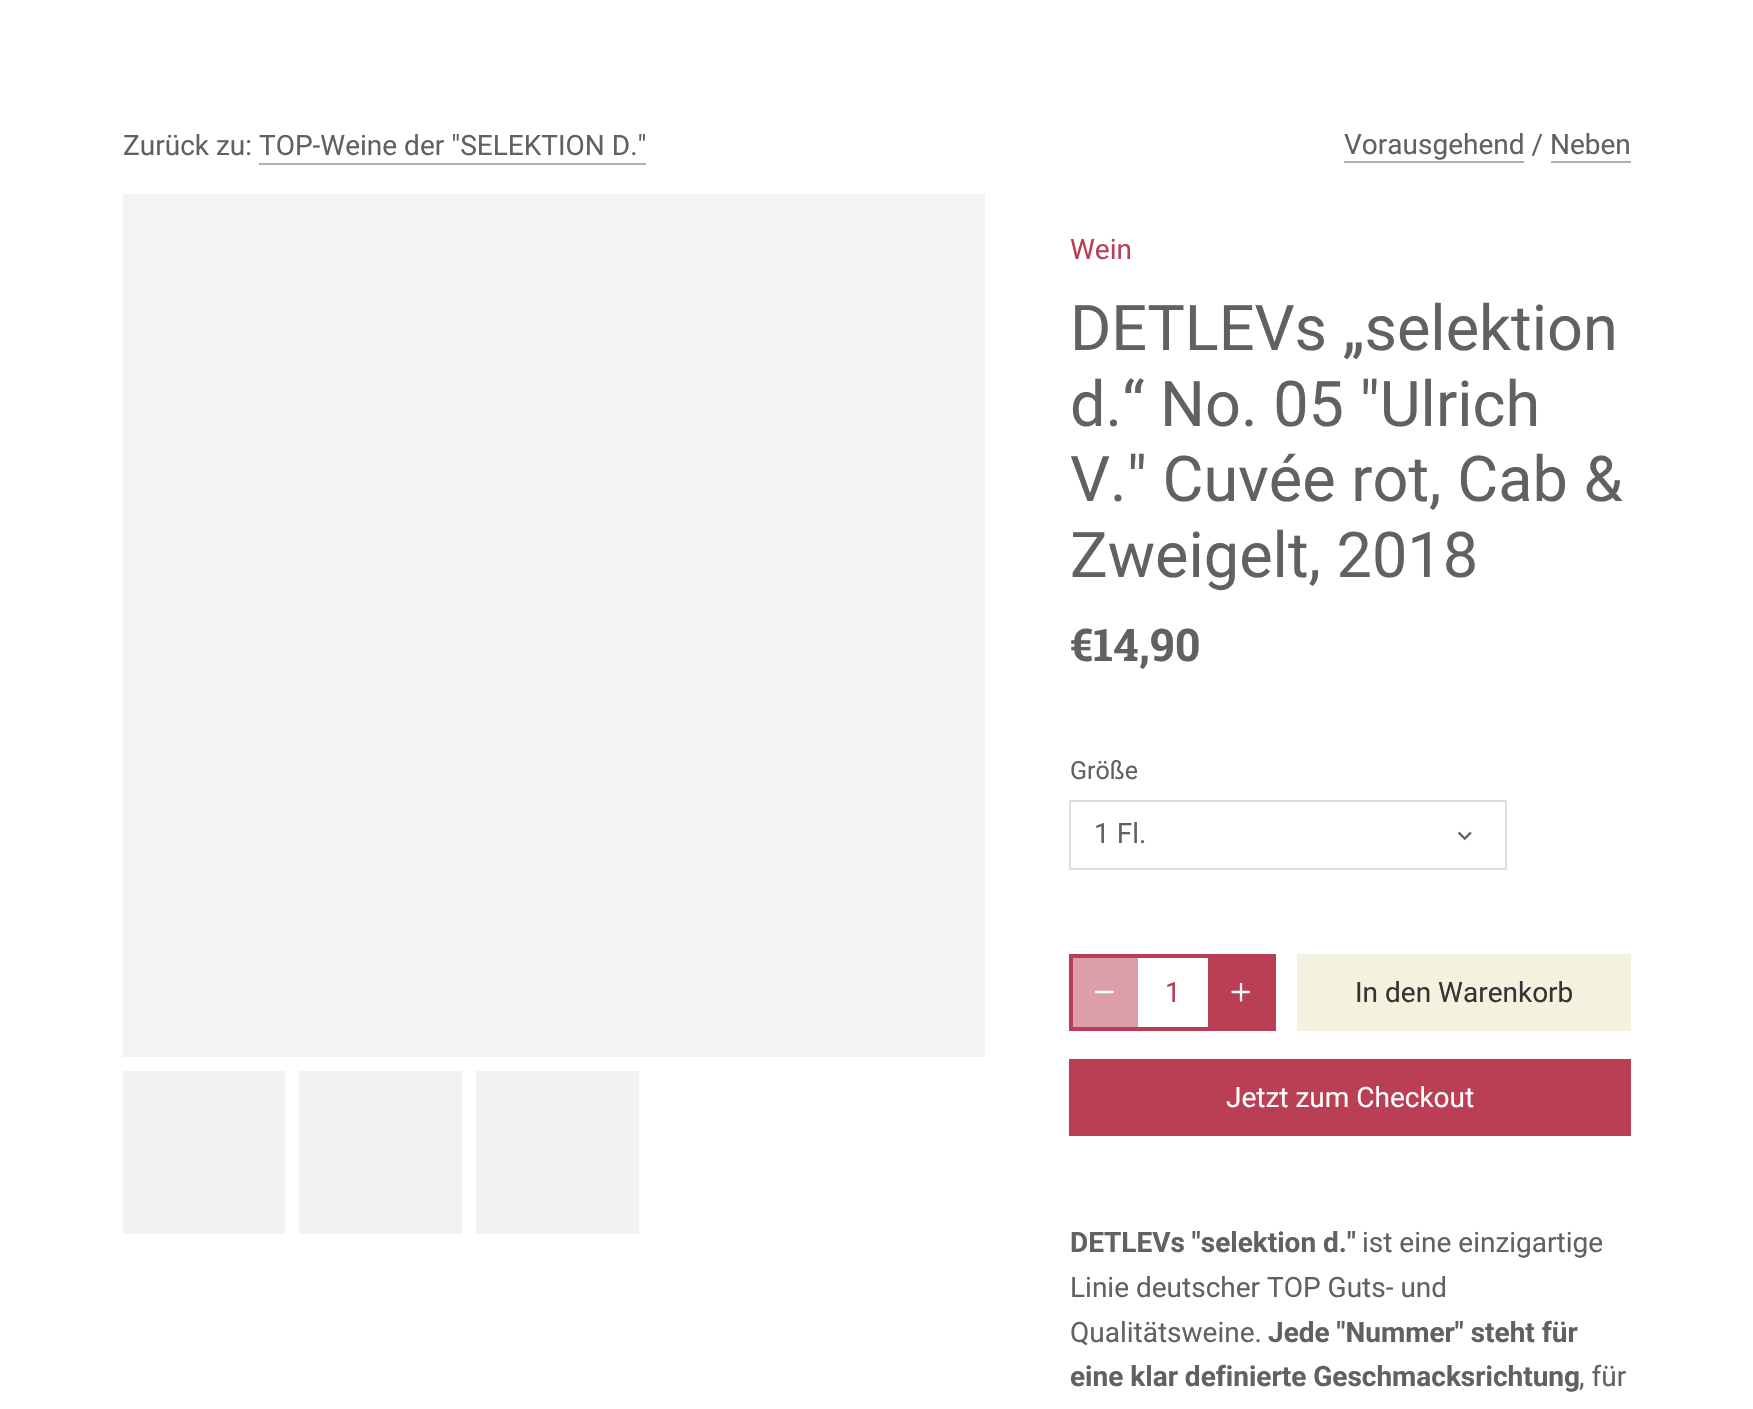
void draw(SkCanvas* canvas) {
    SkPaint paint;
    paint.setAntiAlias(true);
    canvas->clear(0xFFFFFFFF);
    SkFont font1(fontMgr->matchFamilyStyle("Roboto", SkFontStyle::Normal()), 28);
    font1.setSubpixel(true);
    paint.setColor(0xFF616161);
    canvas->drawString("Zurück zu: TOP-Weine der \"SELEKTION D.\"", 123, 155, font1, paint);
    paint.setColor(0xFFB0B0B0);
    canvas->drawRect(SkRect::MakeXYWH(259, 163, 387, 2), paint);
    paint.setColor(0xFF616161);
    canvas->drawString("Vorausgehend / Neben", 1344, 154, font1, paint);
    paint.setColor(0xFFB0B0B0);
    canvas->drawRect(SkRect::MakeXYWH(1344, 161, 180, 2), paint);
    canvas->drawRect(SkRect::MakeXYWH(1551, 161, 80, 2), paint);
    paint.setColor(0xFFF3F3F3);
    canvas->drawRect(SkRect::MakeXYWH(123, 194, 862, 863), paint);
    paint.setColor(0xFFF2F2F2);
    canvas->drawRect(SkRect::MakeXYWH(123, 1071, 162, 163), paint);
    canvas->drawRect(SkRect::MakeXYWH(299, 1071, 163, 163), paint);
    canvas->drawRect(SkRect::MakeXYWH(476, 1071, 163, 163), paint);
    paint.setColor(0xFFBA3F55);
    canvas->drawString("Wein", 1070, 259, font1, paint);
    SkFont font2(fontMgr->matchFamilyStyle("Roboto", SkFontStyle::Normal()), 63);
    font2.setSubpixel(true);
    paint.setColor(0xFF616161);
    canvas->drawString("DETLEVs „selektion", 1070, 350, font2, paint);
    canvas->drawString("d.“ No. 05 \"Ulrich", 1070, 426, font2, paint);
    canvas->drawString("V.\" Cuvée rot, Cab &", 1070, 501, font2, paint);
    canvas->drawString("Zweigelt, 2018", 1070, 577, font2, paint);
    SkFont font3(fontMgr->matchFamilyStyle("Roboto Slab", SkFontStyle::Bold()), 45);
    font3.setSubpixel(true);
    canvas->drawString("€14,90", 1070, 661, font3, paint);
    SkFont font4(fontMgr->matchFamilyStyle("Roboto", SkFontStyle::Normal()), 25);
    font4.setSubpixel(true);
    canvas->drawString("Größe", 1070, 779, font4, paint);
    paint.setStyle(SkPaint::kStroke_Style);
    paint.setStrokeWidth(2);
    paint.setColor(0xFFDEDEDE);
    canvas->drawRect(SkRect::MakeXYWH(1070, 801, 436, 68), paint);
    paint.setStyle(SkPaint::kFill_Style);
    paint.setColor(0xFF616161);
    canvas->drawString("1 Fl.", 1094, 843, font1, paint);
    canvas->drawImageRect(SkImages::DeferredFromEncodedData(SkData::MakeFromFileName("img1.png")), SkRect::MakeXYWH(1457, 831, 15, 10), SkSamplingOptions());
    paint.setStyle(SkPaint::kStroke_Style);
    paint.setColor(0xFFBA3F55);
    canvas->drawRect(SkRect::MakeXYWH(1072, 957, 201, 71), paint);
    canvas->drawRect(SkRect::MakeXYWH(1070, 955, 205, 75), paint);
    paint.setStyle(SkPaint::kFill_Style);
    paint.setColor(0x80BA3F55);
    canvas->drawRect(SkRect::MakeXYWH(1073, 958, 65, 69), paint);
    paint.setStyle(SkPaint::kStroke_Style);
    paint.setStrokeWidth(2.3f);
    paint.setStrokeCap(SkPaint::kRound_Cap);
    paint.setStrokeJoin(SkPaint::kRound_Join);
    paint.setColor(0xFFFFFFFF);
    canvas->drawPath(SkPathBuilder().moveTo(1096, 992).lineTo(1112.5f, 992).detach(), paint);
    paint.setStyle(SkPaint::kFill_Style);
    paint.setColor(0xFFBA3F55);
    canvas->drawString("1", 1165, 1002, font1, paint);
    canvas->drawRect(SkRect::MakeXYWH(1208, 958, 64, 69), paint);
    paint.setStyle(SkPaint::kStroke_Style);
    paint.setColor(0xFFFFFFFF);
    canvas->drawPath(SkPathBuilder().moveTo(1241, 984).lineTo(1241, 1000.5f).moveTo(1232.5f, 992).lineTo(1249, 992).detach(), paint);
    paint.setStyle(SkPaint::kFill_Style);
    paint.setColor(0xFFF4F1DF);
    canvas->drawRect(SkRect::MakeXYWH(1297, 954, 334, 77), paint);
    paint.setColor(0xFF343434);
    canvas->drawString("In den Warenkorb", 1355, 1002, font1, paint);
    paint.setColor(0xFFBA3F55);
    canvas->drawRect(SkRect::MakeXYWH(1069, 1059, 562, 77), paint);
    paint.setColor(0xFFFFFFFF);
    canvas->drawString("Jetzt zum Checkout", 1226, 1107, font1, paint);
    SkFont font5(fontMgr->matchFamilyStyle("Roboto", SkFontStyle::Bold()), 28);
    font5.setSubpixel(true);
    paint.setColor(0xFF616161);
    canvas->drawString("DETLEVs \"selektion d.\"", 1070, 1252, font5, paint);
    canvas->drawString("ist eine einzigartige", 1362, 1252, font1, paint);
    canvas->drawString("Linie deutscher TOP Guts- und", 1070, 1297, font1, paint);
    canvas->drawString("Qualitätsweine.", 1070, 1342, font1, paint);
    canvas->drawString("Jede \"Nummer\" steht für", 1268, 1342, font5, paint);
    canvas->drawString("eine klar definierte Geschmacksrichtung", 1070, 1386, font5, paint);
    canvas->drawString(", für", 1579, 1386, font1, paint);
}
